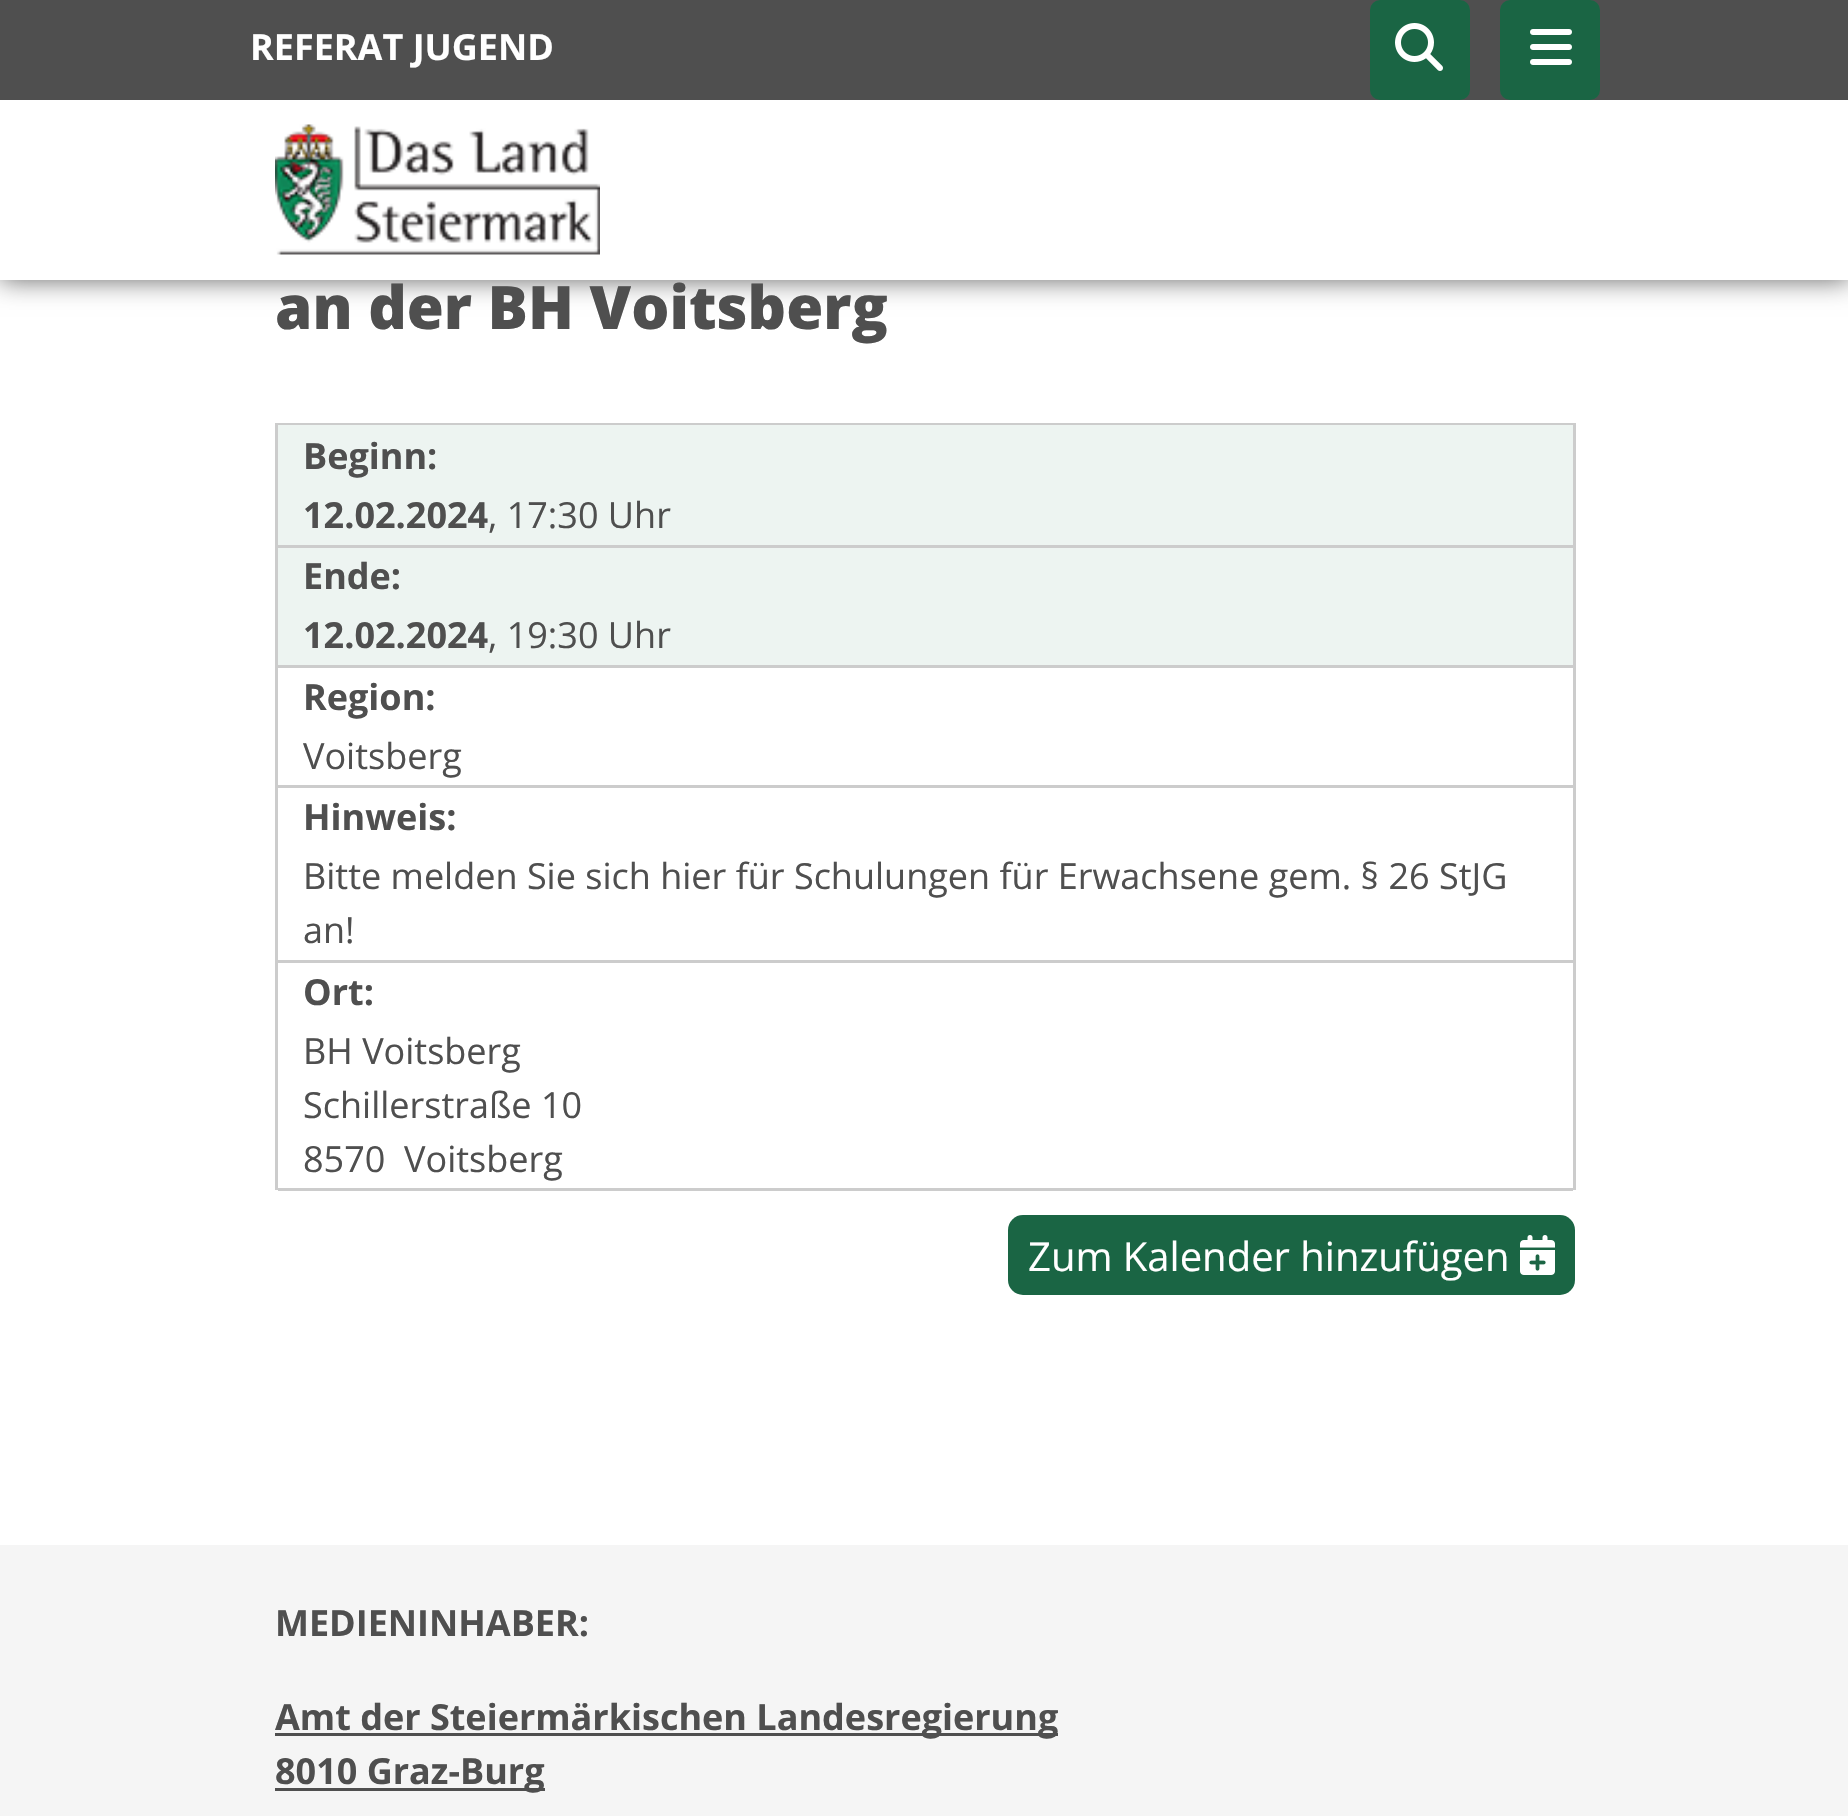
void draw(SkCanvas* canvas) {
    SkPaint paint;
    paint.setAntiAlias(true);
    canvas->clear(0xFFFFFFFF);
    paint.setColor(0xFF656565);
    paint.setMaskFilter(SkMaskFilter::MakeBlur(kNormal_SkBlurStyle, 12.5f));
    canvas->drawRect(SkRect::MakeXYWH(0, 0, 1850, 280), paint);
    paint.setMaskFilter(nullptr);
    paint.setColor(0xFFFFFFFF);
    canvas->drawRect(SkRect::MakeXYWH(0, 100, 1848, 180), paint);
    paint.setColor(0xFF4F4F4F);
    canvas->drawRect(SkRect::MakeXYWH(0, 0, 1848, 100), paint);
    SkFont font1(fontMgr->matchFamilyStyle("Open Sans", SkFontStyle::Bold()), 36);
    font1.setSubpixel(true);
    paint.setColor(0xFFFFFFFF);
    canvas->drawString("REFERAT JUGEND", 250, 60, font1, paint);
    paint.setColor(0xFF1A6544);
    canvas->drawRoundRect(SkRect::MakeXYWH(1370, 0, 100, 100), 10, 10, paint);
    canvas->drawImageRect(SkImages::DeferredFromEncodedData(SkData::MakeFromFileName("img1.png")), SkRect::MakeXYWH(1395, 23, 48, 48), SkSamplingOptions());
    canvas->drawRoundRect(SkRect::MakeXYWH(1500, 0, 100, 100), 10, 10, paint);
    canvas->drawImageRect(SkImages::DeferredFromEncodedData(SkData::MakeFromFileName("img2.png")), SkRect::MakeXYWH(1530, 29, 42, 36), SkSamplingOptions());
    canvas->drawImageRect(SkImages::DeferredFromEncodedData(SkData::MakeFromFileName("img3.png")), SkRect::MakeXYWH(275, 124, 325, 131), SkSamplingOptions());
    SkFont font2(fontMgr->matchFamilyStyle("Open Sans", SkFontStyle(800, SkFontStyle::kNormal_Width, SkFontStyle::kUpright_Slant)), 60);
    font2.setSubpixel(true);
    paint.setColor(0xFF4F4F4F);
    canvas->drawString("an der BH Voitsberg", 275, 329, font2, paint);
    paint.setColor(0xFFCCCCCC);
    canvas->drawRect(SkRect::MakeXYWH(275, 423, 1300, 2), paint);
    canvas->drawRect(SkRect::MakeXYWH(1573, 423, 3, 767), paint);
    canvas->drawRect(SkRect::MakeXYWH(275, 423, 3, 767), paint);
    paint.setColor(0xFFEDF4F1);
    canvas->drawRect(SkRect::MakeXYWH(278, 425, 1295, 120), paint);
    paint.setColor(0xFF4F4F4F);
    canvas->drawString("Beginn:", 303, 469, font1, paint);
    canvas->drawString("12.02.2024", 303, 528, font1, paint);
    SkFont font3(fontMgr->matchFamilyStyle("Open Sans", SkFontStyle::Normal()), 36);
    font3.setSubpixel(true);
    canvas->drawString(", 17:30 Uhr", 488, 528, font3, paint);
    paint.setColor(0xFFCCCCCC);
    canvas->drawRect(SkRect::MakeXYWH(278, 545, 1295, 3), paint);
    paint.setColor(0xFFEDF4F1);
    canvas->drawRect(SkRect::MakeXYWH(278, 548, 1295, 117), paint);
    paint.setColor(0xFF4F4F4F);
    canvas->drawString("Ende:", 303, 589, font1, paint);
    canvas->drawString("12.02.2024", 303, 648, font1, paint);
    canvas->drawString(", 19:30 Uhr", 488, 648, font3, paint);
    paint.setColor(0xFFCCCCCC);
    canvas->drawRect(SkRect::MakeXYWH(278, 665, 1295, 3), paint);
    paint.setColor(0xFF4F4F4F);
    canvas->drawString("Region:", 303, 710, font1, paint);
    canvas->drawString("Voitsberg", 303, 769, font3, paint);
    paint.setColor(0xFFCCCCCC);
    canvas->drawRect(SkRect::MakeXYWH(278, 785, 1295, 3), paint);
    paint.setColor(0xFF4F4F4F);
    canvas->drawString("Hinweis:", 303, 830, font1, paint);
    canvas->drawString("Bitte melden Sie sich hier für Schulungen für Erwachsene gem. § 26 StJG", 303, 889, font3, paint);
    canvas->drawString("an!", 303, 943, font3, paint);
    paint.setColor(0xFFCCCCCC);
    canvas->drawRect(SkRect::MakeXYWH(278, 960, 1295, 3), paint);
    paint.setColor(0xFF4F4F4F);
    canvas->drawString("Ort:", 303, 1005, font1, paint);
    canvas->drawString("BH Voitsberg", 303, 1064, font3, paint);
    canvas->drawString("Schillerstraße 10", 303, 1118, font3, paint);
    canvas->drawString("8570  Voitsberg", 303, 1172, font3, paint);
    paint.setColor(0xFFCCCCCC);
    canvas->drawRect(SkRect::MakeXYWH(278, 1188, 1295, 3), paint);
    paint.setColor(0xFF1A6544);
    canvas->drawRoundRect(SkRect::MakeXYWH(1008, 1215, 567, 80), 15, 15, paint);
    SkFont font4(fontMgr->matchFamilyStyle("Open Sans", SkFontStyle::Normal()), 40);
    font4.setSubpixel(true);
    paint.setColor(0xFFFFFFFF);
    canvas->drawString("Zum Kalender hinzufügen", 1028, 1271, font4, paint);
    canvas->drawImageRect(SkImages::DeferredFromEncodedData(SkData::MakeFromFileName("img4.png")), SkRect::MakeXYWH(1520, 1235, 35, 40), SkSamplingOptions());
    paint.setColor(0xFFF5F5F5);
    canvas->drawRect(SkRect::MakeXYWH(0, 1545, 1848, 271), paint);
    paint.setColor(0xFF4F4F4F);
    canvas->drawString("MEDIENINHABER:", 275, 1636, font1, paint);
    canvas->drawRect(SkRect::MakeXYWH(275, 1733, 783, 3), paint);
    canvas->drawString("Amt der Steiermärkischen Landesregierung", 275, 1730, font1, paint);
    canvas->drawRect(SkRect::MakeXYWH(275, 1788, 270, 3), paint);
    canvas->drawString("8010 Graz-Burg", 275, 1784, font1, paint);
}
